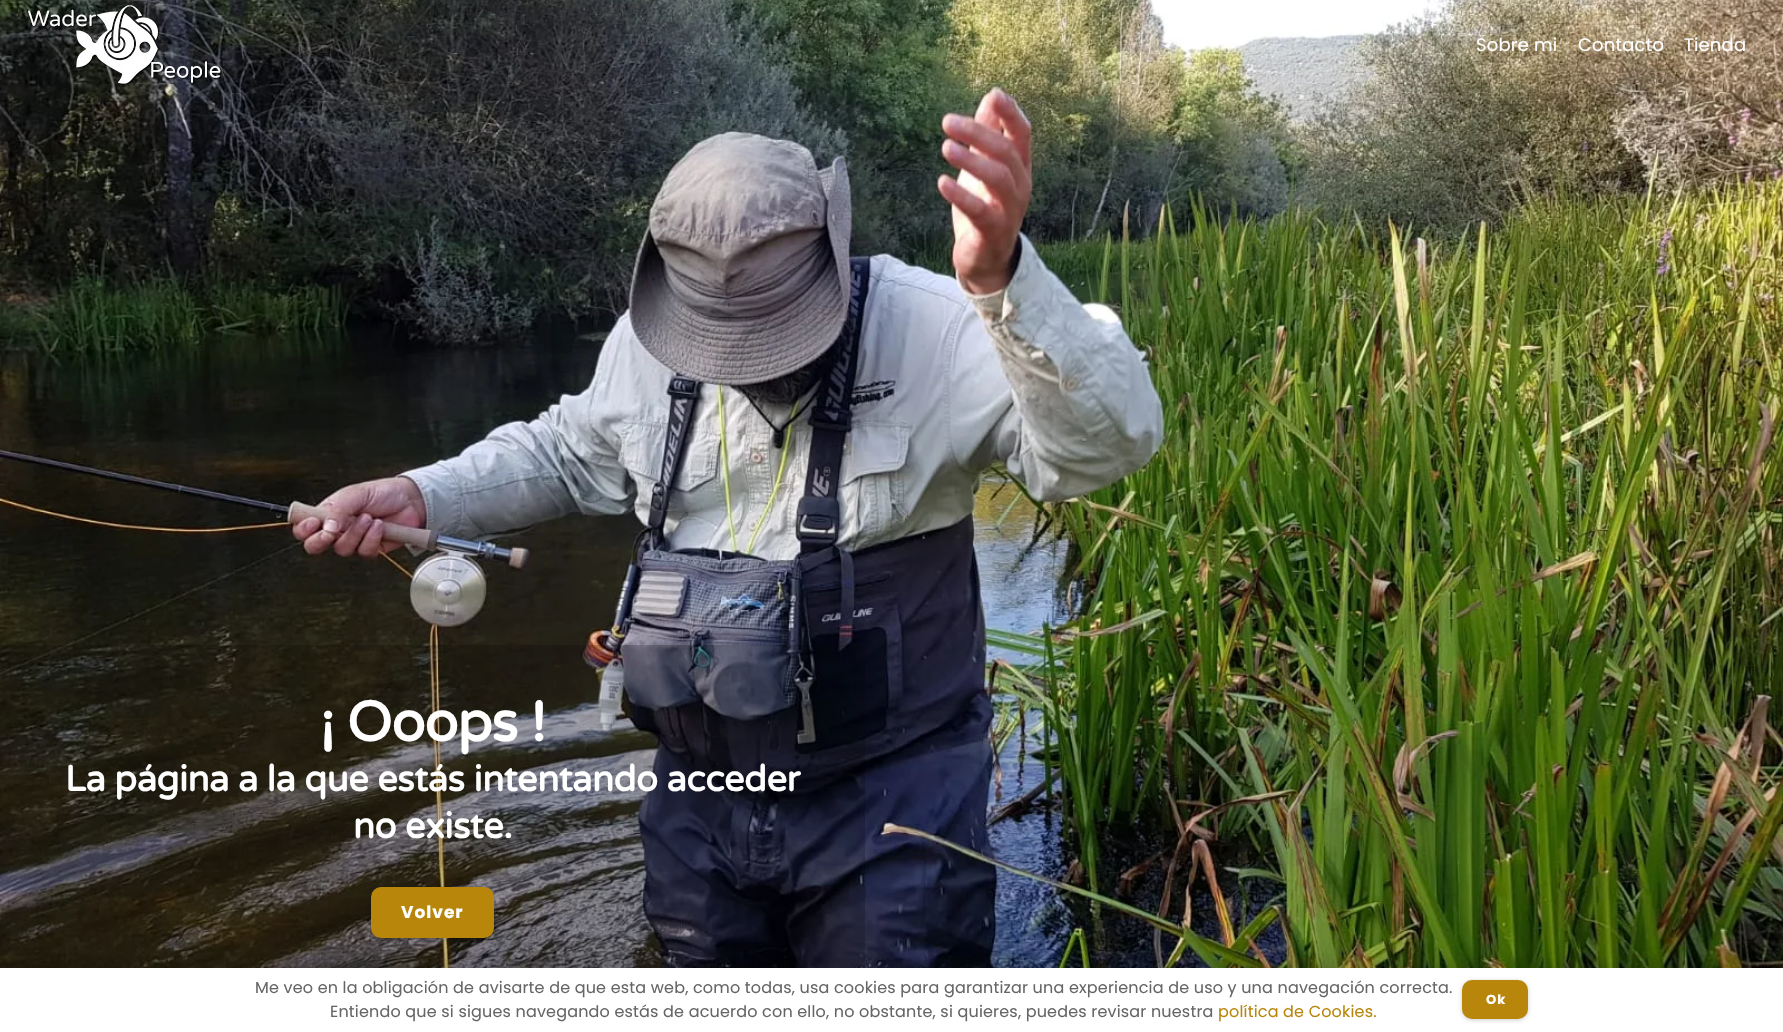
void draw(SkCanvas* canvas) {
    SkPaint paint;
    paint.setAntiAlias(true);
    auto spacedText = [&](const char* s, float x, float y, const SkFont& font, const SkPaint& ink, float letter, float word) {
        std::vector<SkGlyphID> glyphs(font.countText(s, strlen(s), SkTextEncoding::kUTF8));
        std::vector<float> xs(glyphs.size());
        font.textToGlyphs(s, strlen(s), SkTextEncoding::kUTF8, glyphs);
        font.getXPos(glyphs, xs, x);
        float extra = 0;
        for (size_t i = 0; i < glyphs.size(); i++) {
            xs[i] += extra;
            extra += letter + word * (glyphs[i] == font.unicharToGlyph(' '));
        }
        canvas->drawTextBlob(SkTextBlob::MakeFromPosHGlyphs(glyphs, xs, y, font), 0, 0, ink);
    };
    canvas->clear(0xFFFFFFFF);
    canvas->drawImageRect(SkImages::DeferredFromEncodedData(SkData::MakeFromFileName("img2.png")), SkRect::MakeXYWH(0, 0, 1783, 968), SkSamplingOptions());
    canvas->drawImageRect(SkImages::DeferredFromEncodedData(SkData::MakeFromFileName("img1.png")), SkRect::MakeXYWH(28, 5, 195, 80), SkSamplingOptions());
    SkFont font1(fontMgr->matchFamilyStyle("Poppins", SkFontStyle::Normal()), 18);
    font1.setSubpixel(true);
    paint.setColor(0xFFFFFFFF);
    spacedText("Sobre mi", 1476, 51, font1, paint, 0.18f, 0);
    spacedText("Contacto", 1578, 51, font1, paint, 0.18f, 0);
    spacedText("Tienda", 1684, 51, font1, paint, 0.18f, 0);
    paint.setColor(0x33000000);
    canvas->drawRoundRect(SkRect::MakeXYWH(0, 645, 865, 347), 5, 5, paint);
    SkFont font2(fontMgr->matchFamilyStyle("Varela Round", SkFontStyle::Bold()), 56);
    font2.setSubpixel(true);
    paint.setColor(0xFFFFFFFF);
    spacedText("¡ Ooops !", 320, 741, font2, paint, -1.1f, 0);
    SkFont font3(fontMgr->matchFamilyStyle("Varela Round", SkFontStyle::Bold()), 36);
    font3.setSubpixel(true);
    spacedText("La página a la que estás intentando acceder", 65, 791, font3, paint, -0.35f, 0);
    spacedText("no existe.", 353, 838, font3, paint, -0.35f, 0);
    paint.setColor(0x33000000);
    paint.setMaskFilter(SkMaskFilter::MakeBlur(kNormal_SkBlurStyle, 2));
    canvas->drawRoundRect(SkRect::MakeXYWH(371, 888, 123, 51), 10, 10, paint);
    paint.setMaskFilter(nullptr);
    paint.setColor(0xFFB8860B);
    canvas->drawRoundRect(SkRect::MakeXYWH(371, 887, 123, 51), 10, 10, paint);
    SkFont font4(fontMgr->matchFamilyStyle("Poppins", SkFontStyle::Bold()), 17);
    font4.setSubpixel(true);
    paint.setColor(0xFFFFFFFF);
    spacedText("Volver", 401, 918, font4, paint, 1, 0);
    paint.setColor(0x26000000);
    paint.setMaskFilter(SkMaskFilter::MakeBlur(kNormal_SkBlurStyle, 7.5f));
    canvas->drawRect(SkRect::MakeXYWH(0, 963, 1783, 64), paint);
    paint.setMaskFilter(nullptr);
    paint.setColor(0xFFFFFFFF);
    canvas->drawRect(SkRect::MakeXYWH(0, 968, 1783, 64), paint);
    SkFont font5(fontMgr->matchFamilyStyle("Poppins", SkFontStyle::Normal()), 16);
    font5.setSubpixel(true);
    paint.setColor(0xFF666666);
    spacedText("Me veo en la obligación de avisarte de que esta web, como todas, usa cookies para garantizar una experiencia de uso y una navegación correcta.", 255, 993, font5, paint, 0.18f, 0);
    spacedText("Entiendo que si sigues navegando estás de acuerdo con ello, no obstante, si quieres, puedes revisar nuestra", 330, 1017, font5, paint, 0.18f, 0);
    paint.setColor(0xFFB8860B);
    spacedText("política de Cookies.", 1218, 1017, font5, paint, 0.18f, 0);
    paint.setColor(0x33000000);
    paint.setMaskFilter(SkMaskFilter::MakeBlur(kNormal_SkBlurStyle, 2));
    canvas->drawRoundRect(SkRect::MakeXYWH(1462, 981, 66, 39), 10, 10, paint);
    paint.setMaskFilter(nullptr);
    paint.setColor(0xFFB8860B);
    canvas->drawRoundRect(SkRect::MakeXYWH(1462, 980, 66, 39), 10, 10, paint);
    SkFont font6(fontMgr->matchFamilyStyle("Poppins", SkFontStyle::Bold()), 13);
    font6.setSubpixel(true);
    paint.setColor(0xFFFFFFFF);
    spacedText("Ok", 1486, 1004, font6, paint, 1, 0);
}
